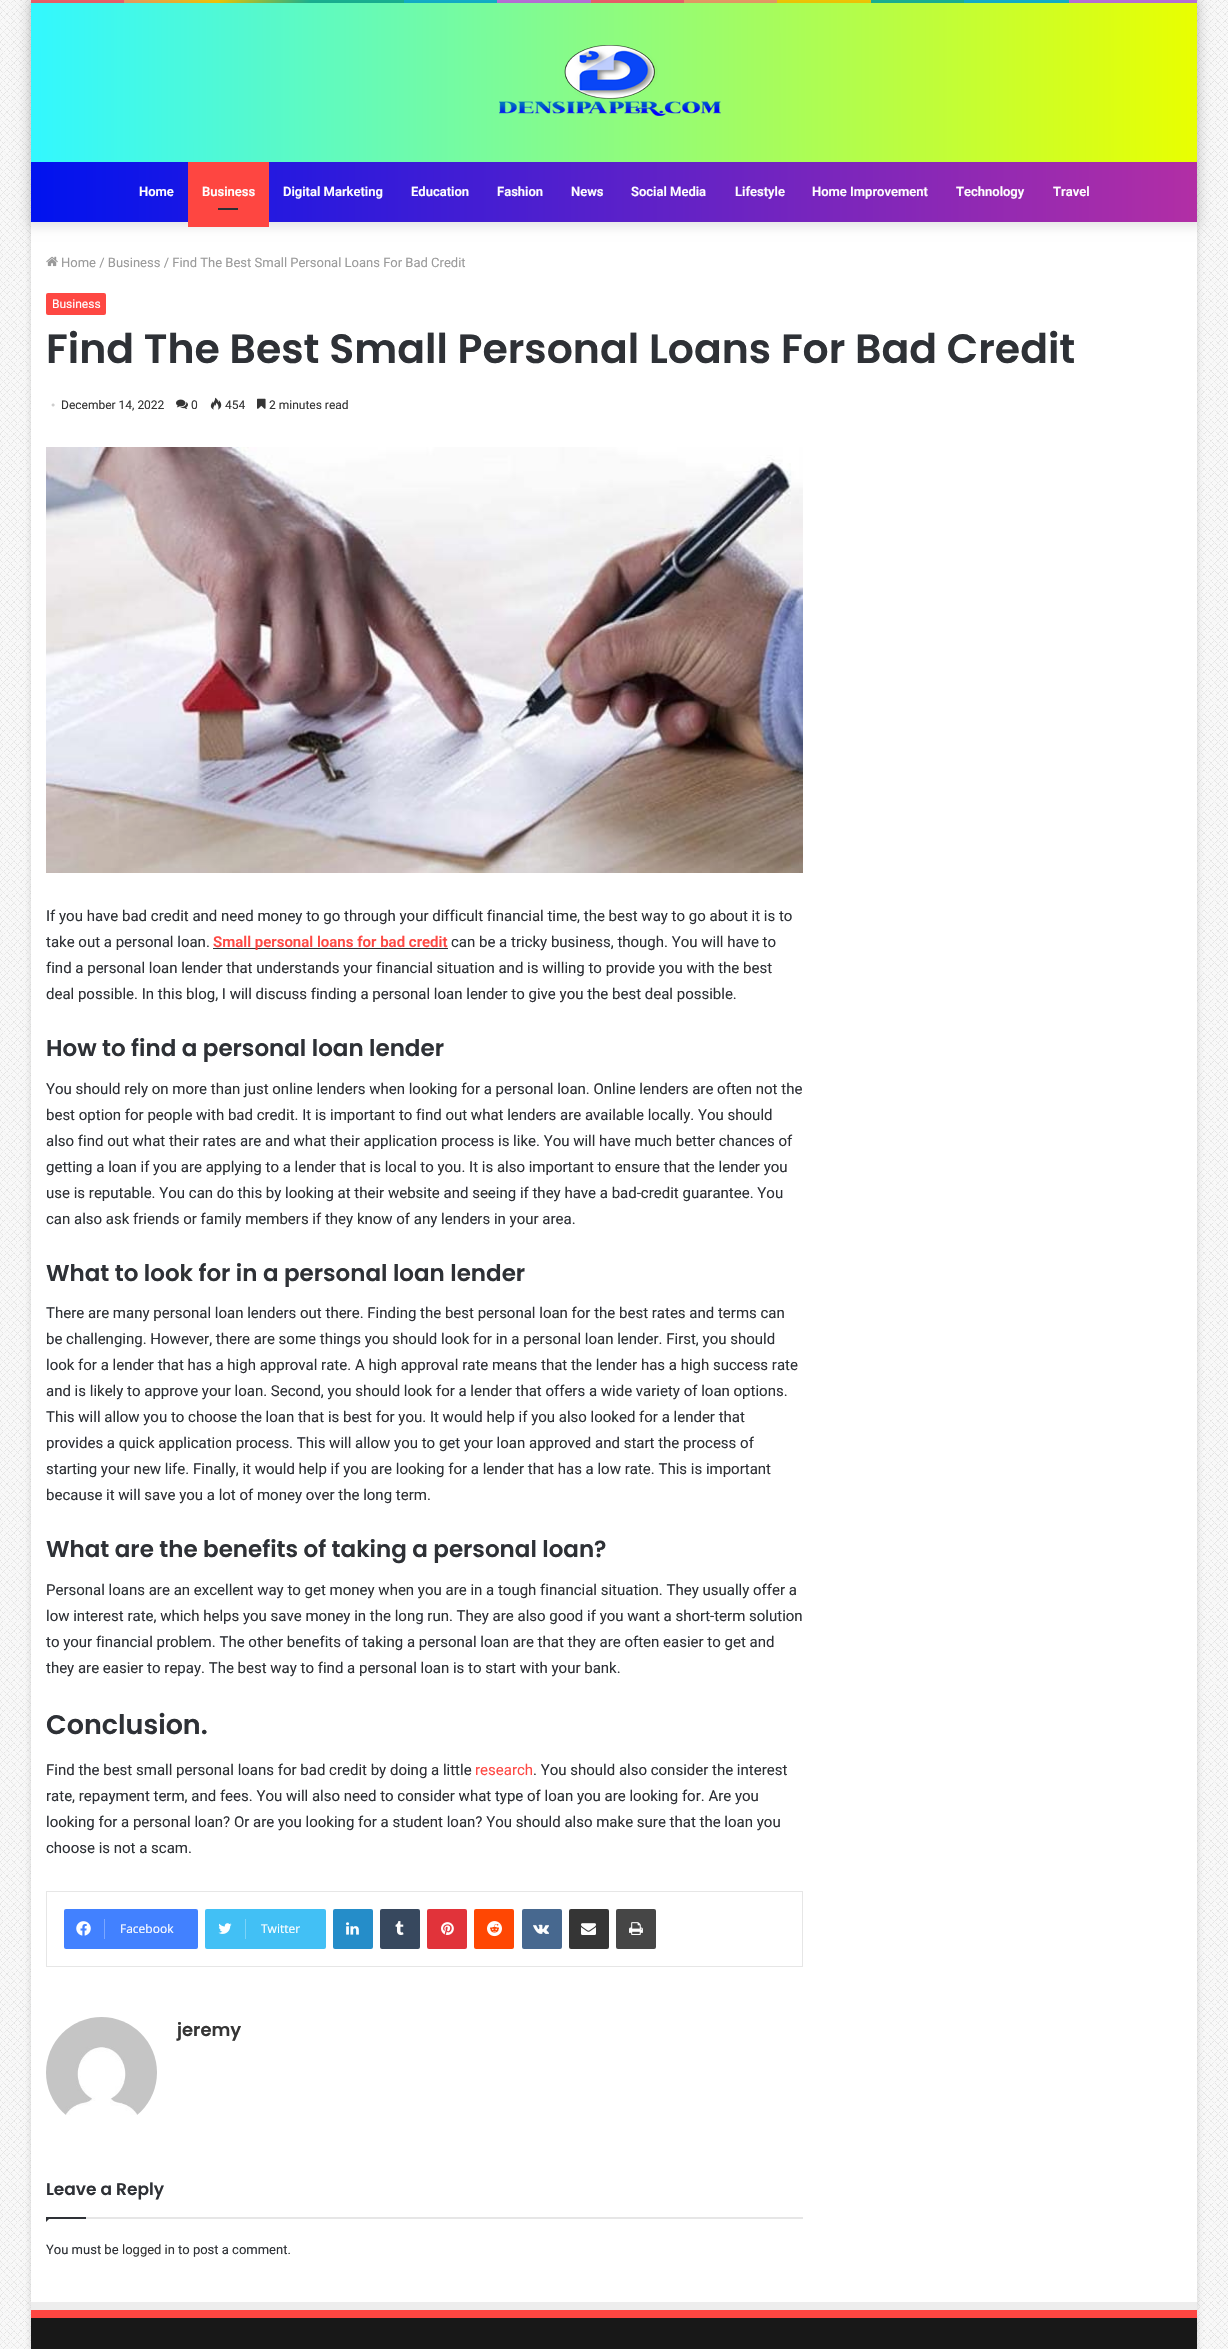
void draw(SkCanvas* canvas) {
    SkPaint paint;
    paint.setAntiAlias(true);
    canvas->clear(0xFFF7F7F7);
    canvas->drawImageRect(SkImages::DeferredFromEncodedData(SkData::MakeFromFileName("img1.png")), SkRect::MakeXYWH(0, 0, 1228, 2349), SkSamplingOptions());
    paint.setColor(0x80ABABAB);
    paint.setMaskFilter(SkMaskFilter::MakeBlur(kNormal_SkBlurStyle, 3.5f));
    canvas->drawRect(SkRect::MakeXYWH(31, 1, 1166, 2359), paint);
    paint.setMaskFilter(nullptr);
    paint.setColor(0xFFFFFFFF);
    canvas->drawRect(SkRect::MakeXYWH(31, 222, 1166, 2080), paint);
    {
        const SkColor colors[] = {0xFFF76570, 0xFFF76570, 0xFFF3A46B, 0xFFFFD205, 0xFF1BBC9B, 0xFF1BBC9B, 0xFF14B9D5, 0xFF14B9D5, 0xFFC377E4, 0xFFC377E4, 0xFFF76570, 0xFFF76570, 0xFFF3A46B, 0xFFF3A46B, 0xFFFFD205, 0xFFFFD205, 0xFF1BBC9B, 0xFF1BBC9B, 0xFF14B9D5, 0xFF14B9D5, 0xFFC377E4, 0xFFC377E4};
        const float stops[] = {0, 0.08f, 0.08f, 0.16f, 0.24f, 0.32f, 0.32f, 0.4f, 0.4f, 0.48f, 0.48f, 0.56f, 0.56f, 0.64f, 0.64f, 0.72f, 0.72f, 0.8f, 0.8f, 0.89f, 0.89f, 1};
        const SkPoint ends[] = {{31, 1.5f}, {1197, 1.5f}};
        paint.setShader(SkGradientShader::MakeLinear(ends, colors, stops, 22, SkTileMode::kClamp));
        paint.setAlpha(255);
    }
    canvas->drawRect(SkRect::MakeXYWH(31, 0, 1166, 3), paint);
    paint.setShader(nullptr);
    paint.setColor(0x1A000000);
    paint.setMaskFilter(SkMaskFilter::MakeBlur(kNormal_SkBlurStyle, 5));
    canvas->drawRect(SkRect::MakeXYWH(26, -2, 1176, 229), paint);
    paint.setMaskFilter(nullptr);
    {
        const SkColor colors[] = {0xFF32F8FF, 0xFFE9FF00};
        const float stops[] = {0, 1};
        const SkPoint ends[] = {{31, 113}, {1197, 112}};
        paint.setShader(SkGradientShader::MakeLinear(ends, colors, stops, 2, SkTileMode::kClamp));
        paint.setAlpha(255);
    }
    canvas->drawRect(SkRect::MakeXYWH(31, 3, 1166, 159), paint);
    canvas->drawImageRect(SkImages::DeferredFromEncodedData(SkData::MakeFromFileName("img2.png")), SkRect::MakeXYWH(499, 45, 222, 71), SkSamplingOptions());
    {
        const SkColor colors[] = {0xFF0013EF, 0xFFB22EA5};
        const float stops[] = {0, 1};
        const SkPoint ends[] = {{31, 192}, {1197, 192}};
        paint.setShader(SkGradientShader::MakeLinear(ends, colors, stops, 2, SkTileMode::kClamp));
        paint.setAlpha(255);
    }
    canvas->drawRect(SkRect::MakeXYWH(31, 162, 1166, 60), paint);
    SkFont font1(fontMgr->matchFamilyStyle("Roboto", SkFontStyle(600, SkFontStyle::kNormal_Width, SkFontStyle::kUpright_Slant)), 13);
    font1.setSubpixel(true);
    paint.setShader(nullptr);
    paint.setColor(0xFFFFFFFF);
    canvas->drawString("Home", 139, 196, font1, paint);
    paint.setColor(0xFFFE4641);
    canvas->drawRect(SkRect::MakeXYWH(188, 162, 81, 65), paint);
    paint.setColor(0xFFFFFFFF);
    canvas->drawString("Business", 202, 196, font1, paint);
    paint.setColor(0xFF2C2F34);
    canvas->drawRect(SkRect::MakeXYWH(218, 208, 20, 2), paint);
    paint.setColor(0xFFFFFFFF);
    canvas->drawString("Digital Marketing", 283, 196, font1, paint);
    canvas->drawString("Education", 411, 196, font1, paint);
    canvas->drawString("Fashion", 497, 196, font1, paint);
    canvas->drawString("News", 571, 196, font1, paint);
    canvas->drawString("Social Media", 631, 196, font1, paint);
    canvas->drawString("Lifestyle", 735, 196, font1, paint);
    canvas->drawString("Home Improvement", 812, 196, font1, paint);
    canvas->drawString("Technology", 956, 196, font1, paint);
    canvas->drawString("Travel", 1053, 196, font1, paint);
    canvas->drawImageRect(SkImages::DeferredFromEncodedData(SkData::MakeFromFileName("img3.png")), SkRect::MakeXYWH(46, 256, 12, 11), SkSamplingOptions());
    SkFont font2(fontMgr->matchFamilyStyle("Roboto", SkFontStyle::Normal()), 13);
    font2.setSubpixel(true);
    paint.setColor(0xFF9A9A9A);
    canvas->drawString("Home / Business / Find The Best Small Personal Loans For Bad Credit", 61, 267, font2, paint);
    paint.setColor(0xFFFE4843);
    canvas->drawRoundRect(SkRect::MakeXYWH(46, 293, 60, 22), 2, 2, paint);
    SkFont font3(fontMgr->matchFamilyStyle("Roboto", SkFontStyle::Normal()), 12);
    font3.setSubpixel(true);
    paint.setColor(0xFFFFFFFF);
    canvas->drawString("Business", 52, 308, font3, paint);
    SkFont font4(fontMgr->matchFamilyStyle("Poppins", SkFontStyle(600, SkFontStyle::kNormal_Width, SkFontStyle::kUpright_Slant)), 41);
    font4.setSubpixel(true);
    paint.setColor(0xFF2E3136);
    canvas->drawString("Find The Best Small Personal Loans For Bad Credit", 46, 363, font4, paint);
    SkFont font5(fontMgr->matchFamilyStyle("Liberation Serif", SkFontStyle::Normal()), 12);
    font5.setSubpixel(true);
    paint.setColor(0xFFCDCDCD);
    canvas->drawString("•", 51, 409, font5, paint);
    paint.setColor(0xFF353535);
    canvas->drawString("December 14, 2022", 61, 409, font3, paint);
    canvas->drawImageRect(SkImages::DeferredFromEncodedData(SkData::MakeFromFileName("img4.png")), SkRect::MakeXYWH(176, 399, 12, 10), SkSamplingOptions());
    canvas->drawString("0", 191, 409, font3, paint);
    canvas->drawImageRect(SkImages::DeferredFromEncodedData(SkData::MakeFromFileName("img5.png")), SkRect::MakeXYWH(210, 397, 12, 13), SkSamplingOptions());
    canvas->drawString("454", 225, 409, font3, paint);
    canvas->drawImageRect(SkImages::DeferredFromEncodedData(SkData::MakeFromFileName("img6.png")), SkRect::MakeXYWH(257, 398, 9, 11), SkSamplingOptions());
    canvas->drawString("2 minutes read", 269, 409, font3, paint);
    canvas->drawImageRect(SkImages::DeferredFromEncodedData(SkData::MakeFromFileName("img7.png")), SkRect::MakeXYWH(46, 447, 757, 426), SkSamplingOptions());
    SkFont font6(fontMgr->matchFamilyStyle("Roboto", SkFontStyle::Normal()), 15);
    font6.setSubpixel(true);
    paint.setColor(0xFF2E3136);
    canvas->drawString("If you have bad credit and need money to go through your difficult financial time, the best way to go about it is to", 46, 921, font6, paint);
    canvas->drawString("take out a personal loan.", 46, 947, font6, paint);
    canvas->drawRect(SkRect::MakeXYWH(213, 948, 235, 1), paint);
    SkFont font7(fontMgr->matchFamilyStyle("Roboto", SkFontStyle(600, SkFontStyle::kNormal_Width, SkFontStyle::kUpright_Slant)), 15);
    font7.setSubpixel(true);
    paint.setColor(0xFFFE4843);
    canvas->drawString("Small personal loans for bad credit", 213, 947, font7, paint);
    paint.setColor(0xFF2E3136);
    canvas->drawString("can be a tricky business, though. You will have to", 451, 947, font6, paint);
    canvas->drawString("find a personal loan lender that understands your financial situation and is willing to provide you with the best", 46, 973, font6, paint);
    canvas->drawString("deal possible. In this blog, I will discuss finding a personal loan lender to give you the best deal possible.", 46, 999, font6, paint);
    SkFont font8(fontMgr->matchFamilyStyle("Poppins", SkFontStyle(600, SkFontStyle::kNormal_Width, SkFontStyle::kUpright_Slant)), 23);
    font8.setSubpixel(true);
    canvas->drawString("How to find a personal loan lender", 46, 1056, font8, paint);
    canvas->drawString("You should rely on more than just online lenders when looking for a personal loan. Online lenders are often not the", 46, 1094, font6, paint);
    canvas->drawString("best option for people with bad credit. It is important to find out what lenders are available locally. You should", 46, 1120, font6, paint);
    canvas->drawString("also find out what their rates are and what their application process is like. You will have much better chances of", 46, 1146, font6, paint);
    canvas->drawString("getting a loan if you are applying to a lender that is local to you. It is also important to ensure that the lender you", 46, 1172, font6, paint);
    canvas->drawString("use is reputable. You can do this by looking at their website and seeing if they have a bad-credit guarantee. You", 46, 1198, font6, paint);
    canvas->drawString("can also ask friends or family members if they know of any lenders in your area.", 46, 1224, font6, paint);
    canvas->drawString("What to look for in a personal loan lender", 46, 1281, font8, paint);
    canvas->drawString("There are many personal loan lenders out there. Finding the best personal loan for the best rates and terms can", 46, 1318, font6, paint);
    canvas->drawString("be challenging. However, there are some things you should look for in a personal loan lender. First, you should", 46, 1344, font6, paint);
    canvas->drawString("look for a lender that has a high approval rate. A high approval rate means that the lender has a high success rate", 46, 1370, font6, paint);
    canvas->drawString("and is likely to approve your loan. Second, you should look for a lender that offers a wide variety of loan options.", 46, 1396, font6, paint);
    canvas->drawString("This will allow you to choose the loan that is best for you. It would help if you also looked for a lender that", 46, 1422, font6, paint);
    canvas->drawString("provides a quick application process. This will allow you to get your loan approved and start the process of", 46, 1448, font6, paint);
    canvas->drawString("starting your new life. Finally, it would help if you are looking for a lender that has a low rate. This is important", 46, 1474, font6, paint);
    canvas->drawString("because it will save you a lot of money over the long term.", 46, 1500, font6, paint);
    canvas->drawString("What are the benefits of taking a personal loan?", 46, 1557, font8, paint);
    canvas->drawString("Personal loans are an excellent way to get money when you are in a tough financial situation. They usually offer a", 46, 1595, font6, paint);
    canvas->drawString("low interest rate, which helps you save money in the long run. They are also good if you want a short-term solution", 46, 1621, font6, paint);
    canvas->drawString("to your financial problem. The other benefits of taking a personal loan are that they are often easier to get and", 46, 1647, font6, paint);
    canvas->drawString("they are easier to repay. The best way to find a personal loan is to start with your bank.", 46, 1673, font6, paint);
    SkFont font9(fontMgr->matchFamilyStyle("Poppins", SkFontStyle(600, SkFontStyle::kNormal_Width, SkFontStyle::kUpright_Slant)), 27);
    font9.setSubpixel(true);
    canvas->drawString("Conclusion.", 46, 1734, font9, paint);
    canvas->drawString("Find the best small personal loans for bad credit by doing a little", 46, 1775, font6, paint);
    paint.setColor(0xFFFE4843);
    canvas->drawString("research", 475, 1775, font6, paint);
    paint.setColor(0xFF2E3136);
    canvas->drawString(". You should also consider the interest", 533, 1775, font6, paint);
    canvas->drawString("rate, repayment term, and fees. You will also need to consider what type of loan you are looking for. Are you", 46, 1801, font6, paint);
    canvas->drawString("looking for a personal loan? Or are you looking for a student loan? You should also make sure that the loan you", 46, 1827, font6, paint);
    canvas->drawString("choose is not a scam.", 46, 1853, font6, paint);
    paint.setStyle(SkPaint::kStroke_Style);
    paint.setStrokeWidth(1);
    paint.setColor(0xFFE6E6E6);
    canvas->drawRect(SkRect::MakeXYWH(46.5f, 1891.5f, 756, 75), paint);
    paint.setStyle(SkPaint::kFill_Style);
    paint.setColor(0xFF4281FF);
    canvas->drawRoundRect(SkRect::MakeXYWH(64, 1909, 134, 40), 2, 2, paint);
    canvas->drawImageRect(SkImages::DeferredFromEncodedData(SkData::MakeFromFileName("img8.png")), SkRect::MakeXYWH(76, 1921, 15, 15), SkSamplingOptions());
    paint.setColor(0xFF7BA7FF);
    canvas->drawRect(SkRect::MakeXYWH(104, 1919, 1, 20), paint);
    SkFont font10(fontMgr->matchFamilyStyle("Open Sans", SkFontStyle::Normal()), 12);
    font10.setSubpixel(true);
    paint.setColor(0xFFFFFFFF);
    canvas->drawString("Facebook", 120, 1933, font10, paint);
    paint.setColor(0xFF42C0F5);
    canvas->drawRoundRect(SkRect::MakeXYWH(205, 1909, 121, 40), 2, 2, paint);
    canvas->drawImageRect(SkImages::DeferredFromEncodedData(SkData::MakeFromFileName("img9.png")), SkRect::MakeXYWH(218, 1923, 14, 11), SkSamplingOptions());
    paint.setColor(0xFF7BD3F8);
    canvas->drawRect(SkRect::MakeXYWH(245, 1919, 1, 20), paint);
    paint.setColor(0xFFFFFFFF);
    canvas->drawString("Twitter", 261, 1933, font10, paint);
    paint.setColor(0xFF258DC9);
    canvas->drawRoundRect(SkRect::MakeXYWH(333, 1909, 40, 40), 2, 2, paint);
    canvas->drawImageRect(SkImages::DeferredFromEncodedData(SkData::MakeFromFileName("img10.png")), SkRect::MakeXYWH(346, 1922, 13, 13), SkSamplingOptions());
    paint.setColor(0xFF37485E);
    canvas->drawRoundRect(SkRect::MakeXYWH(380, 1909, 40, 40), 2, 2, paint);
    canvas->drawImageRect(SkImages::DeferredFromEncodedData(SkData::MakeFromFileName("img11.png")), SkRect::MakeXYWH(395, 1921, 9, 14), SkSamplingOptions());
    paint.setColor(0xFFE1333A);
    canvas->drawRoundRect(SkRect::MakeXYWH(427, 1909, 40, 40), 2, 2, paint);
    canvas->drawImageRect(SkImages::DeferredFromEncodedData(SkData::MakeFromFileName("img12.png")), SkRect::MakeXYWH(441, 1922, 13, 13), SkSamplingOptions());
    paint.setColor(0xFFFF4703);
    canvas->drawRoundRect(SkRect::MakeXYWH(474, 1909, 40, 40), 2, 2, paint);
    canvas->drawImageRect(SkImages::DeferredFromEncodedData(SkData::MakeFromFileName("img13.png")), SkRect::MakeXYWH(487, 1921, 15, 16), SkSamplingOptions());
    paint.setColor(0xFF47688F);
    canvas->drawRoundRect(SkRect::MakeXYWH(522, 1909, 40, 40), 2, 2, paint);
    canvas->drawImageRect(SkImages::DeferredFromEncodedData(SkData::MakeFromFileName("img14.png")), SkRect::MakeXYWH(533, 1924, 16, 10), SkSamplingOptions());
    paint.setColor(0xFF353535);
    canvas->drawRoundRect(SkRect::MakeXYWH(569, 1909, 40, 40), 2, 2, paint);
    canvas->drawImageRect(SkImages::DeferredFromEncodedData(SkData::MakeFromFileName("img15.png")), SkRect::MakeXYWH(581, 1923, 15, 12), SkSamplingOptions());
    paint.setColor(0xFF464646);
    canvas->drawRoundRect(SkRect::MakeXYWH(616, 1909, 40, 40), 2, 2, paint);
    canvas->drawImageRect(SkImages::DeferredFromEncodedData(SkData::MakeFromFileName("img16.png")), SkRect::MakeXYWH(629, 1922, 14, 13), SkSamplingOptions());
    canvas->drawImageRect(SkImages::DeferredFromEncodedData(SkData::MakeFromFileName("img17.png")), SkRect::MakeXYWH(46, 2017, 111, 98), SkSamplingOptions());
    SkFont font11(fontMgr->matchFamilyStyle("Poppins", SkFontStyle(600, SkFontStyle::kNormal_Width, SkFontStyle::kUpright_Slant)), 18);
    font11.setSubpixel(true);
    paint.setColor(0xFF353535);
    canvas->drawString("jeremy", 177, 2036, font11, paint);
    paint.setColor(0xFFE6E6E6);
    canvas->drawRect(SkRect::MakeXYWH(86, 2217, 717, 2), paint);
    SkFont font12(fontMgr->matchFamilyStyle("Poppins", SkFontStyle(600, SkFontStyle::kNormal_Width, SkFontStyle::kUpright_Slant)), 17);
    font12.setSubpixel(true);
    paint.setColor(0xFF2E3136);
    canvas->drawString("Leave a Reply", 46, 2195, font12, paint);
    canvas->drawPath(SkPathBuilder().moveTo(46, 2217).lineTo(51, 2217).lineTo(46, 2222).close().detach(), paint);
    canvas->drawRect(SkRect::MakeXYWH(46, 2217, 40, 2), paint);
    canvas->drawString("You must be", 46, 2254, font2, paint);
    paint.setColor(0xFF353535);
    canvas->drawString("logged in", 122, 2254, font2, paint);
    paint.setColor(0xFF2E3136);
    canvas->drawString("to post a comment.", 178, 2254, font2, paint);
    paint.setColor(0xFFEDEDED);
    canvas->drawRect(SkRect::MakeXYWH(31, 2302, 1166, 8), paint);
    paint.setColor(0xFFFE4641);
    canvas->drawRect(SkRect::MakeXYWH(31, 2310, 1166, 8), paint);
    paint.setColor(0xFF181818);
    canvas->drawRect(SkRect::MakeXYWH(31, 2318, 1166, 31), paint);
}
